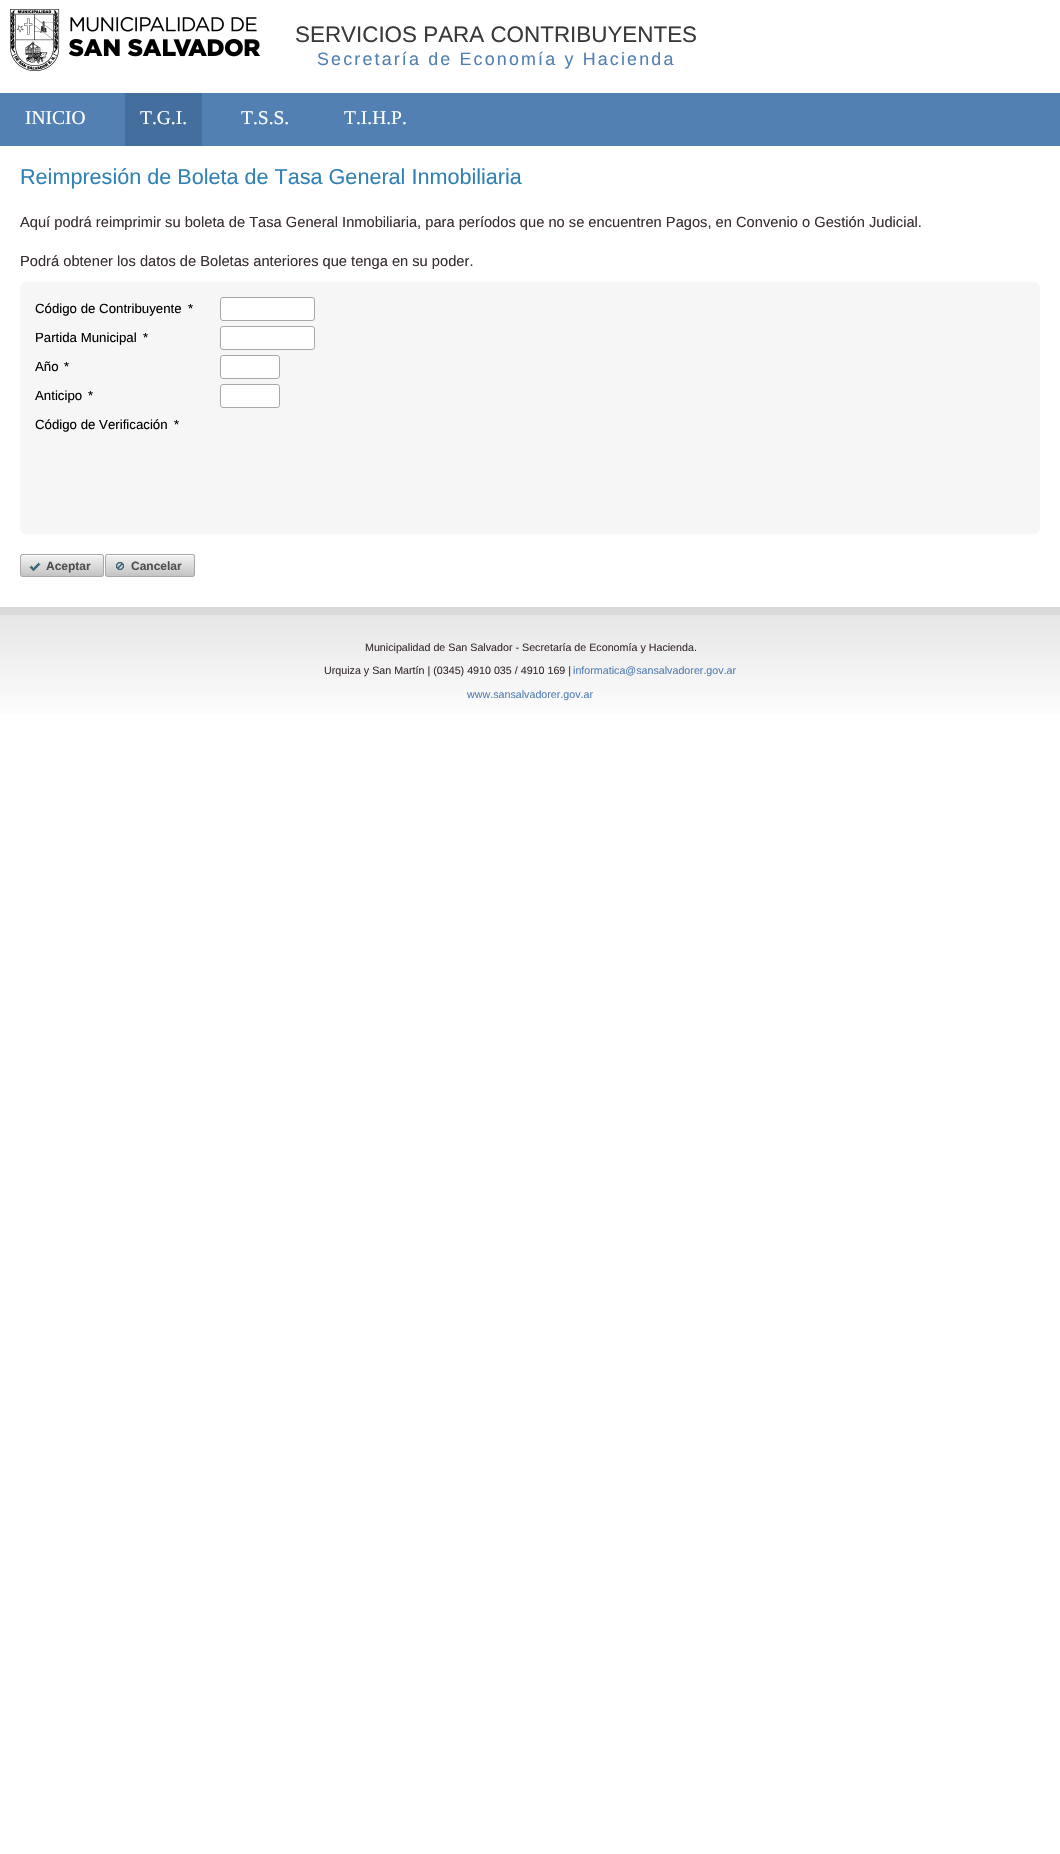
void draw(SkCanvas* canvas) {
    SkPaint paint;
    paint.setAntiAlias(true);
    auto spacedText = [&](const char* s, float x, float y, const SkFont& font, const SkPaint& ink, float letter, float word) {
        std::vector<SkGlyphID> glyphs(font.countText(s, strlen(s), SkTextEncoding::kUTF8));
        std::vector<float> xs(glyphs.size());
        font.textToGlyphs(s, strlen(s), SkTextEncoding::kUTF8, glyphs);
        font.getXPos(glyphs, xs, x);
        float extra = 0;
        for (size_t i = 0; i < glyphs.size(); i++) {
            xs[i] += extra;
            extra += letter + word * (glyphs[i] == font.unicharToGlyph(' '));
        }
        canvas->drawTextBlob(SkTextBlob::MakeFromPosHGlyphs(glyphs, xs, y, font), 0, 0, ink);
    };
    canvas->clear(0xFFFFFFFF);
    canvas->drawImageRect(SkImages::DeferredFromEncodedData(SkData::MakeFromFileName("img1.png")), SkRect::MakeXYWH(10, 9, 250, 62), SkSamplingOptions());
    SkFont font1(fontMgr->matchFamilyStyle("Liberation Sans", SkFontStyle::Normal()), 22.4f);
    font1.setSubpixel(true);
    paint.setColor(0xFF393939);
    canvas->drawString("SERVICIOS PARA CONTRIBUYENTES", 295, 42, font1, paint);
    SkFont font2(fontMgr->matchFamilyStyle("Liberation Sans", SkFontStyle::Normal()), 17.9f);
    font2.setSubpixel(true);
    paint.setColor(0xFF5380B2);
    spacedText("Secretaría de Economía y Hacienda", 317, 65, font2, paint, 2.15f, 0);
    canvas->drawRect(SkRect::MakeXYWH(0, 93, 1060, 53), paint);
    SkFont font3(fontMgr->matchFamilyStyle("Liberation Serif", SkFontStyle::Normal()), 19.5f);
    font3.setSubpixel(true);
    paint.setColor(0xFFFFFFFF);
    canvas->drawString("INICIO", 25, 124, font3, paint);
    paint.setColor(0xFF446E9E);
    canvas->drawRect(SkRect::MakeXYWH(125, 93, 77, 53), paint);
    paint.setColor(0xFFFFFFFF);
    canvas->drawString("T.G.I.", 140, 124, font3, paint);
    canvas->drawString("T.S.S.", 241, 124, font3, paint);
    canvas->drawString("T.I.H.P.", 344, 124, font3, paint);
    SkFont font4(fontMgr->matchFamilyStyle("Liberation Sans", SkFontStyle::Normal()), 21.6f);
    font4.setSubpixel(true);
    paint.setColor(0xFF3181B5);
    canvas->drawString("Reimpresión de Boleta de Tasa General Inmobiliaria", 20, 184, font4, paint);
    SkFont font5(fontMgr->matchFamilyStyle("Liberation Sans", SkFontStyle::Normal()), 14.67f);
    font5.setSubpixel(true);
    paint.setColor(0xFF392E32);
    canvas->drawString("Aquí podrá reimprimir su boleta de Tasa General Inmobiliaria, para períodos que no se encuentren Pagos, en Convenio o Gestión Judicial.", 20, 227, font5, paint);
    canvas->drawString("Podrá obtener los datos de Boletas anteriores que tenga en su poder.", 20, 266, font5, paint);
    paint.setColor(0xFFF6F6F6);
    canvas->drawRoundRect(SkRect::MakeXYWH(20, 282, 1020, 252), 6, 6, paint);
    SkFont font6(fontMgr->matchFamilyStyle("Liberation Sans", SkFontStyle::Normal()), 13.25f);
    font6.setSubpixel(true);
    paint.setColor(0xFF000000);
    canvas->drawString("Código de Contribuyente", 35, 313, font6, paint);
    canvas->drawString("*", 188, 313, font6, paint);
    paint.setColor(0xFFFFFFFF);
    canvas->drawRoundRect(SkRect::MakeXYWH(220.5f, 297.5f, 94, 23), 2.5f, 2.5f, paint);
    paint.setStyle(SkPaint::kStroke_Style);
    paint.setStrokeWidth(1);
    paint.setColor(0xFFA8A8A8);
    canvas->drawRoundRect(SkRect::MakeXYWH(220.5f, 297.5f, 94, 23), 2.5f, 2.5f, paint);
    paint.setStyle(SkPaint::kFill_Style);
    paint.setColor(0xFF000000);
    canvas->drawString("Partida Municipal", 35, 342, font6, paint);
    canvas->drawString("*", 143, 342, font6, paint);
    paint.setColor(0xFFFFFFFF);
    canvas->drawRoundRect(SkRect::MakeXYWH(220.5f, 326.5f, 94, 23), 2.5f, 2.5f, paint);
    paint.setStyle(SkPaint::kStroke_Style);
    paint.setColor(0xFFA8A8A8);
    canvas->drawRoundRect(SkRect::MakeXYWH(220.5f, 326.5f, 94, 23), 2.5f, 2.5f, paint);
    paint.setStyle(SkPaint::kFill_Style);
    paint.setColor(0xFF000000);
    canvas->drawString("Año", 35, 371, font6, paint);
    canvas->drawString("*", 64, 371, font6, paint);
    paint.setColor(0xFFFFFFFF);
    canvas->drawRoundRect(SkRect::MakeXYWH(220.5f, 355.5f, 59, 23), 2.5f, 2.5f, paint);
    paint.setStyle(SkPaint::kStroke_Style);
    paint.setColor(0xFFA8A8A8);
    canvas->drawRoundRect(SkRect::MakeXYWH(220.5f, 355.5f, 59, 23), 2.5f, 2.5f, paint);
    paint.setStyle(SkPaint::kFill_Style);
    paint.setColor(0xFF000000);
    canvas->drawString("Anticipo", 35, 400, font6, paint);
    canvas->drawString("*", 88, 400, font6, paint);
    paint.setColor(0xFFFFFFFF);
    canvas->drawRoundRect(SkRect::MakeXYWH(220.5f, 384.5f, 59, 23), 2.5f, 2.5f, paint);
    paint.setStyle(SkPaint::kStroke_Style);
    paint.setColor(0xFFA8A8A8);
    canvas->drawRoundRect(SkRect::MakeXYWH(220.5f, 384.5f, 59, 23), 2.5f, 2.5f, paint);
    paint.setStyle(SkPaint::kFill_Style);
    paint.setColor(0xFF000000);
    canvas->drawString("Código de Verificación", 35, 429, font6, paint);
    canvas->drawString("*", 174, 429, font6, paint);
    paint.setColor(0xFFC4C4C4);
    canvas->drawRoundRect(SkRect::MakeXYWH(20, 554, 84, 23), 3, 3, paint);
    canvas->save();
    canvas->clipPath(SkPathBuilder().moveTo(23, 554).lineTo(101, 554).cubicTo(102.5f, 554, 104, 555.5f, 104, 557).lineTo(104, 574).cubicTo(104, 575.5f, 102.5f, 577, 101, 577).lineTo(23, 577).cubicTo(21.5f, 577, 20, 575.5f, 20, 574).lineTo(20, 557).cubicTo(20, 555.5f, 21.5f, 554, 23, 554).close().detach(), true);
    {
        const SkColor colors[] = {0xCCFFFFFF, 0x00FFFFFF};
        const float stops[] = {0, 1};
        const SkPoint ends[] = {{21, 555}, {21, 576}};
        paint.setShader(SkGradientShader::MakeLinear(ends, colors, stops, 2, SkTileMode::kClamp));
        paint.setAlpha(255);
    }
    canvas->drawRect(SkRect::MakeXYWH(20, 555, 84, 20), paint);
    canvas->restore();
    paint.setShader(nullptr);
    paint.setColor(0xFFFFFFFF);
    canvas->drawPath(SkPathBuilder().moveTo(23, 556).lineTo(101, 556).cubicTo(102, 556, 103, 557, 103, 558).cubicTo(103, 551, 91, 555, 88, 555).lineTo(36, 555).cubicTo(33, 555, 21, 551, 21, 558).cubicTo(21, 557, 22, 556, 23, 556).close().detach(), paint);
    paint.setStyle(SkPaint::kStroke_Style);
    paint.setColor(0xFFA8A8A8);
    canvas->drawRoundRect(SkRect::MakeXYWH(20.5f, 554.5f, 83, 22), 2.5f, 2.5f, paint);
    canvas->drawImageRect(SkImages::DeferredFromEncodedData(SkData::MakeFromFileName("img2.png")), SkRect::MakeXYWH(29, 562, 12, 9), SkSamplingOptions());
    SkFont font7(fontMgr->matchFamilyStyle("Liberation Sans", SkFontStyle::Bold()), 12);
    font7.setSubpixel(true);
    paint.setStyle(SkPaint::kFill_Style);
    paint.setColor(0xFF4F4F4F);
    canvas->drawString("Aceptar", 46, 570, font7, paint);
    paint.setColor(0xFFC4C4C4);
    canvas->drawRoundRect(SkRect::MakeXYWH(105, 554, 90, 23), 3, 3, paint);
    canvas->save();
    canvas->clipPath(SkPathBuilder().moveTo(108, 554).lineTo(192, 554).cubicTo(193.5f, 554, 195, 555.5f, 195, 557).lineTo(195, 574).cubicTo(195, 575.5f, 193.5f, 577, 192, 577).lineTo(108, 577).cubicTo(106.5f, 577, 105, 575.5f, 105, 574).lineTo(105, 557).cubicTo(105, 555.5f, 106.5f, 554, 108, 554).close().detach(), true);
    {
        const SkColor colors[] = {0xCCFFFFFF, 0x00FFFFFF};
        const float stops[] = {0, 1};
        const SkPoint ends[] = {{106, 555}, {106, 576}};
        paint.setShader(SkGradientShader::MakeLinear(ends, colors, stops, 2, SkTileMode::kClamp));
        paint.setAlpha(255);
    }
    canvas->drawRect(SkRect::MakeXYWH(105, 555, 90, 20), paint);
    canvas->restore();
    paint.setShader(nullptr);
    paint.setColor(0xFFFFFFFF);
    canvas->drawPath(SkPathBuilder().moveTo(108, 556).lineTo(192, 556).cubicTo(193, 556, 194, 557, 194, 558).cubicTo(194, 551, 180, 555, 178, 555).lineTo(122, 555).cubicTo(120, 555, 106, 551, 106, 558).cubicTo(106, 557, 107, 556, 108, 556).close().detach(), paint);
    paint.setStyle(SkPaint::kStroke_Style);
    paint.setColor(0xFFA8A8A8);
    canvas->drawRoundRect(SkRect::MakeXYWH(105.5f, 554.5f, 89, 22), 2.5f, 2.5f, paint);
    canvas->drawImageRect(SkImages::DeferredFromEncodedData(SkData::MakeFromFileName("img3.png")), SkRect::MakeXYWH(116, 562, 8, 8), SkSamplingOptions());
    paint.setStyle(SkPaint::kFill_Style);
    paint.setColor(0xFF4F4F4F);
    canvas->drawString("Cancelar", 131, 570, font7, paint);
    {
        const SkColor colors[] = {0xFFE6E6E6, 0xFFFFFFFF};
        const float stops[] = {0, 1};
        const SkPoint ends[] = {{530, 615}, {530, 725}};
        paint.setShader(SkGradientShader::MakeLinear(ends, colors, stops, 2, SkTileMode::kClamp));
        paint.setAlpha(255);
    }
    canvas->drawRect(SkRect::MakeXYWH(0, 615, 1060, 99), paint);
    paint.setShader(nullptr);
    paint.setColor(0xFFD9D9D9);
    canvas->drawRect(SkRect::MakeXYWH(0, 607, 1060, 8), paint);
    SkFont font8(fontMgr->matchFamilyStyle("Liberation Sans", SkFontStyle::Normal()), 10.7f);
    font8.setSubpixel(true);
    paint.setColor(0xFF392E32);
    canvas->drawString("Municipalidad de San Salvador - Secretaría de Economía y Hacienda.", 365, 651, font8, paint);
    canvas->drawString("Urquiza y San Martín | (0345) 4910 035 / 4910 169 |", 324, 674, font8, paint);
    paint.setColor(0xFF5380B2);
    canvas->drawString("informatica@sansalvadorer.gov.ar", 573, 674, font8, paint);
    canvas->drawString("www.sansalvadorer.gov.ar", 467, 698, font8, paint);
}
